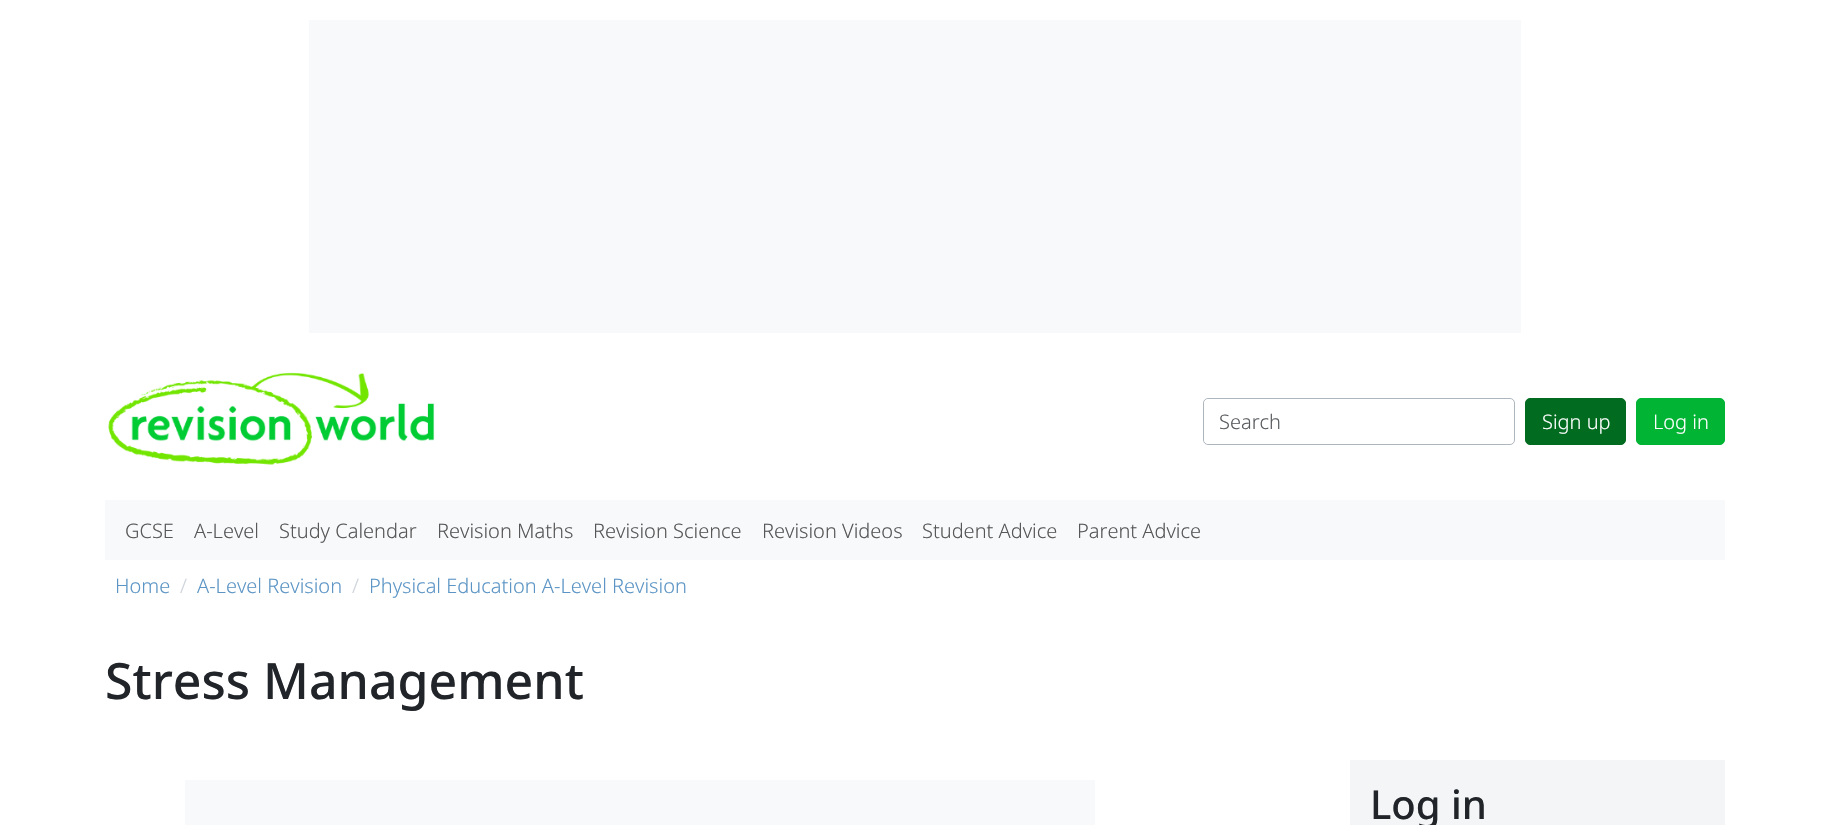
void draw(SkCanvas* canvas) {
    SkPaint paint;
    paint.setAntiAlias(true);
    canvas->clear(0xFFFFFFFF);
    paint.setColor(0xFFF8F9FA);
    canvas->drawRect(SkRect::MakeXYWH(309, 20, 1212, 313), paint);
    canvas->drawImageRect(SkImages::DeferredFromEncodedData(SkData::MakeFromFileName("img1.png")), SkRect::MakeXYWH(108, 372, 327, 93), SkSamplingOptions());
    paint.setStyle(SkPaint::kStroke_Style);
    paint.setStrokeWidth(1);
    paint.setColor(0xFFADB5BD);
    canvas->drawRoundRect(SkRect::MakeXYWH(1203.5f, 398.5f, 311, 46), 4.5f, 4.5f, paint);
    paint.setStyle(SkPaint::kFill_Style);
    paint.setColor(0xFFFFFFFF);
    canvas->drawRoundRect(SkRect::MakeXYWH(1204, 399, 270, 45), 5, 5, paint);
    SkFont font1(fontMgr->matchFamilyStyle("Noto Sans", SkFontStyle(300, SkFontStyle::kNormal_Width, SkFontStyle::kUpright_Slant)), 20);
    font1.setSubpixel(true);
    paint.setColor(0xFF595C5F);
    canvas->drawString("Search", 1219, 429, font1, paint);
    paint.setColor(0xFF016C1F);
    canvas->drawRoundRect(SkRect::MakeXYWH(1525.5f, 398.5f, 100, 46), 4.5f, 4.5f, paint);
    paint.setStyle(SkPaint::kStroke_Style);
    canvas->drawRoundRect(SkRect::MakeXYWH(1525.5f, 398.5f, 100, 46), 4.5f, 4.5f, paint);
    paint.setStyle(SkPaint::kFill_Style);
    paint.setColor(0xFFFFFFFF);
    canvas->drawString("Sign up", 1542, 429, font1, paint);
    paint.setColor(0xFF01B434);
    canvas->drawRoundRect(SkRect::MakeXYWH(1636.5f, 398.5f, 88, 46), 4.5f, 4.5f, paint);
    paint.setStyle(SkPaint::kStroke_Style);
    canvas->drawRoundRect(SkRect::MakeXYWH(1636.5f, 398.5f, 88, 46), 4.5f, 4.5f, paint);
    paint.setStyle(SkPaint::kFill_Style);
    paint.setColor(0xFFFFFFFF);
    canvas->drawString("Log in", 1653, 429, font1, paint);
    paint.setColor(0xFFF8F9FA);
    canvas->drawRect(SkRect::MakeXYWH(105, 500, 1620, 60), paint);
    paint.setColor(0xFF575758);
    canvas->drawString("GCSE", 125, 538, font1, paint);
    canvas->drawString("A-Level", 194, 538, font1, paint);
    canvas->drawString("Study Calendar", 279, 538, font1, paint);
    canvas->drawString("Revision Maths", 437, 538, font1, paint);
    canvas->drawString("Revision Science", 593, 538, font1, paint);
    canvas->drawString("Revision Videos", 762, 538, font1, paint);
    canvas->drawString("Student Advice", 922, 538, font1, paint);
    canvas->drawString("Parent Advice", 1077, 538, font1, paint);
    paint.setColor(0xFF5C95C5);
    canvas->drawString("Home", 115, 593, font1, paint);
    paint.setColor(0xFFCED4DA);
    canvas->drawString("/", 180, 593, font1, paint);
    paint.setColor(0xFF5C95C5);
    canvas->drawString("A-Level Revision", 197, 593, font1, paint);
    paint.setColor(0xFFCED4DA);
    canvas->drawString("/", 352, 593, font1, paint);
    paint.setColor(0xFF5C95C5);
    canvas->drawString("Physical Education A-Level Revision", 369, 593, font1, paint);
    SkFont font2(fontMgr->matchFamilyStyle("Noto Sans", SkFontStyle(500, SkFontStyle::kNormal_Width, SkFontStyle::kUpright_Slant)), 50);
    font2.setSubpixel(true);
    paint.setColor(0xFF212529);
    canvas->drawString("Stress Management", 105, 699, font2, paint);
    paint.setColor(0xFFF8F9FA);
    canvas->drawRect(SkRect::MakeXYWH(185, 780, 910, 45), paint);
    paint.setColor(0xFFF4F5F6);
    canvas->drawRect(SkRect::MakeXYWH(1350, 760, 375, 65), paint);
    SkFont font3(fontMgr->matchFamilyStyle("Noto Sans", SkFontStyle(500, SkFontStyle::kNormal_Width, SkFontStyle::kUpright_Slant)), 40);
    font3.setSubpixel(true);
    paint.setColor(0xFF212529);
    canvas->drawString("Log in", 1370, 819, font3, paint);
}
